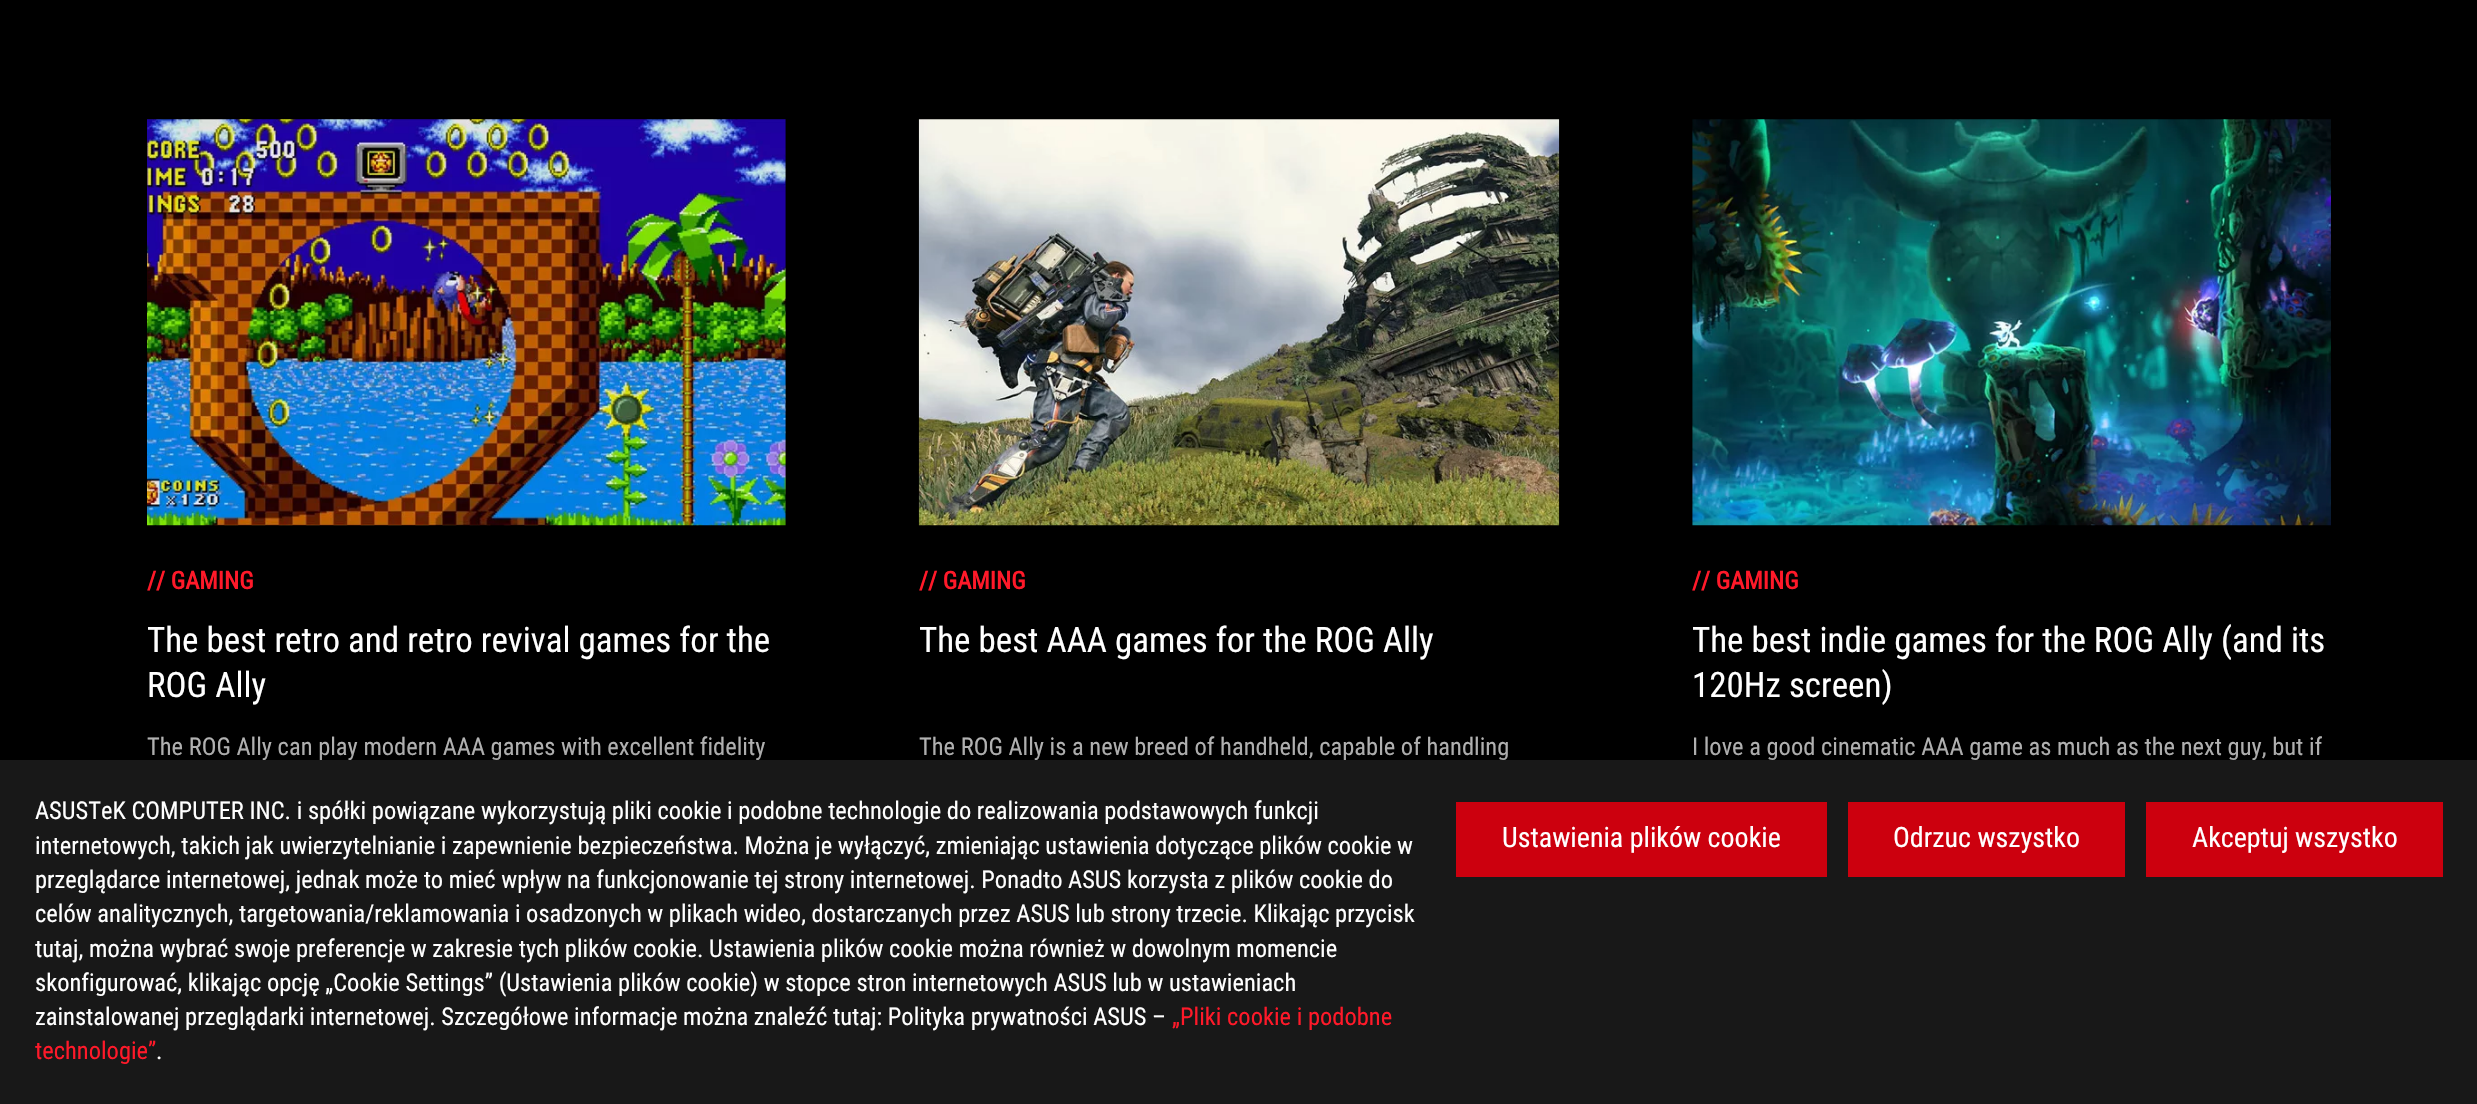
void draw(SkCanvas* canvas) {
    SkPaint paint;
    paint.setAntiAlias(true);
    canvas->clear(0xFF000000);
    canvas->drawImageRect(SkImages::DeferredFromEncodedData(SkData::MakeFromFileName("img1.png")), SkRect::MakeXYWH(147, 119, 639, 407), SkSamplingOptions());
    SkFont font1(fontMgr->matchFamilyStyle("Roboto Condensed", SkFontStyle::Bold()), 24.5f);
    font1.setSubpixel(true);
    paint.setColor(0xFFFF1929);
    canvas->drawString("// GAMING", 147, 589, font1, paint);
    SkFont font2(fontMgr->matchFamilyStyle("Roboto Condensed", SkFontStyle::Normal()), 35);
    font2.setSubpixel(true);
    paint.setColor(0xFFFFFFFF);
    canvas->drawString("The best retro and retro revival games for the", 147, 652, font2, paint);
    canvas->drawString("ROG Ally", 147, 697, font2, paint);
    SkFont font3(fontMgr->matchFamilyStyle("Roboto Condensed", SkFontStyle::Normal()), 24.5f);
    font3.setSubpixel(true);
    paint.setColor(0xFFB3B3B3);
    canvas->drawString("The ROG Ally can play modern AAA games with excellent fidelity", 147, 755, font3, paint);
    canvas->drawImageRect(SkImages::DeferredFromEncodedData(SkData::MakeFromFileName("img2.png")), SkRect::MakeXYWH(918, 119, 642, 407), SkSamplingOptions());
    paint.setColor(0xFFFF1929);
    canvas->drawString("// GAMING", 919, 589, font1, paint);
    paint.setColor(0xFFFFFFFF);
    canvas->drawString("The best AAA games for the ROG Ally", 919, 652, font2, paint);
    paint.setColor(0xFFB3B3B3);
    canvas->drawString("The ROG Ally is a new breed of handheld, capable of handling", 919, 755, font3, paint);
    canvas->drawImageRect(SkImages::DeferredFromEncodedData(SkData::MakeFromFileName("img3.png")), SkRect::MakeXYWH(1692, 119, 639, 407), SkSamplingOptions());
    paint.setColor(0xFFFF1929);
    canvas->drawString("// GAMING", 1692, 589, font1, paint);
    paint.setColor(0xFFFFFFFF);
    canvas->drawString("The best indie games for the ROG Ally (and its", 1692, 652, font2, paint);
    canvas->drawString("120Hz screen)", 1692, 697, font2, paint);
    paint.setColor(0xFFB3B3B3);
    canvas->drawString("I love a good cinematic AAA game as much as the next guy, but if", 1692, 755, font3, paint);
    paint.setColor(0x1A000000);
    paint.setMaskFilter(SkMaskFilter::MakeBlur(kNormal_SkBlurStyle, 10.5f));
    canvas->drawRect(SkRect::MakeXYWH(2, 756, 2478, 345), paint);
    paint.setMaskFilter(nullptr);
    paint.setColor(0xFF181818);
    canvas->drawRect(SkRect::MakeXYWH(0, 760, 2477, 344), paint);
    paint.setColor(0xFFFFFFFF);
    canvas->drawString("ASUSTeK COMPUTER INC. i spółki powiązane wykorzystują pliki cookie i podobne technologie do realizowania podstawowych funkcji", 35, 819, font3, paint);
    canvas->drawString("internetowych, takich jak uwierzytelnianie i zapewnienie bezpieczeństwa. Można je wyłączyć, zmieniając ustawienia dotyczące plików cookie w", 35, 854, font3, paint);
    canvas->drawString("przeglądarce internetowej, jednak może to mieć wpływ na funkcjonowanie tej strony internetowej. Ponadto ASUS korzysta z plików cookie do", 35, 888, font3, paint);
    canvas->drawString("celów analitycznych, targetowania/reklamowania i osadzonych w plikach wideo, dostarczanych przez ASUS lub strony trzecie. Klikając przycisk", 35, 922, font3, paint);
    canvas->drawString("tutaj, można wybrać swoje preferencje w zakresie tych plików cookie. Ustawienia plików cookie można również w dowolnym momencie", 35, 957, font3, paint);
    canvas->drawString("skonfigurować, klikając opcję „Cookie Settings” (Ustawienia plików cookie) w stopce stron internetowych ASUS lub w ustawieniach", 35, 991, font3, paint);
    canvas->drawString("zainstalowanej przeglądarki internetowej. Szczegółowe informacje można znaleźć tutaj: Polityka prywatności ASUS –", 35, 1025, font3, paint);
    paint.setColor(0xFFFF1929);
    canvas->drawString("„Pliki cookie i podobne", 1172, 1025, font3, paint);
    canvas->drawString("technologie”", 35, 1059, font3, paint);
    paint.setColor(0xFFFFFFFF);
    canvas->drawString(".", 156, 1059, font3, paint);
    paint.setColor(0xFFCC000E);
    canvas->drawRect(SkRect::MakeXYWH(1456, 802, 371, 75), paint);
    SkFont font4(fontMgr->matchFamilyStyle("Roboto Condensed", SkFontStyle::Normal()), 28);
    font4.setSubpixel(true);
    paint.setColor(0xFFFFFFFF);
    canvas->drawString("Ustawienia plików cookie", 1502, 847, font4, paint);
    paint.setColor(0xFFCC000E);
    canvas->drawRect(SkRect::MakeXYWH(1848, 802, 277, 75), paint);
    paint.setColor(0xFFFFFFFF);
    canvas->drawString("Odrzuc wszystko", 1893, 847, font4, paint);
    paint.setColor(0xFFCC000E);
    canvas->drawRect(SkRect::MakeXYWH(2146, 802, 297, 75), paint);
    paint.setColor(0xFFFFFFFF);
    canvas->drawString("Akceptuj wszystko", 2192, 847, font4, paint);
}
